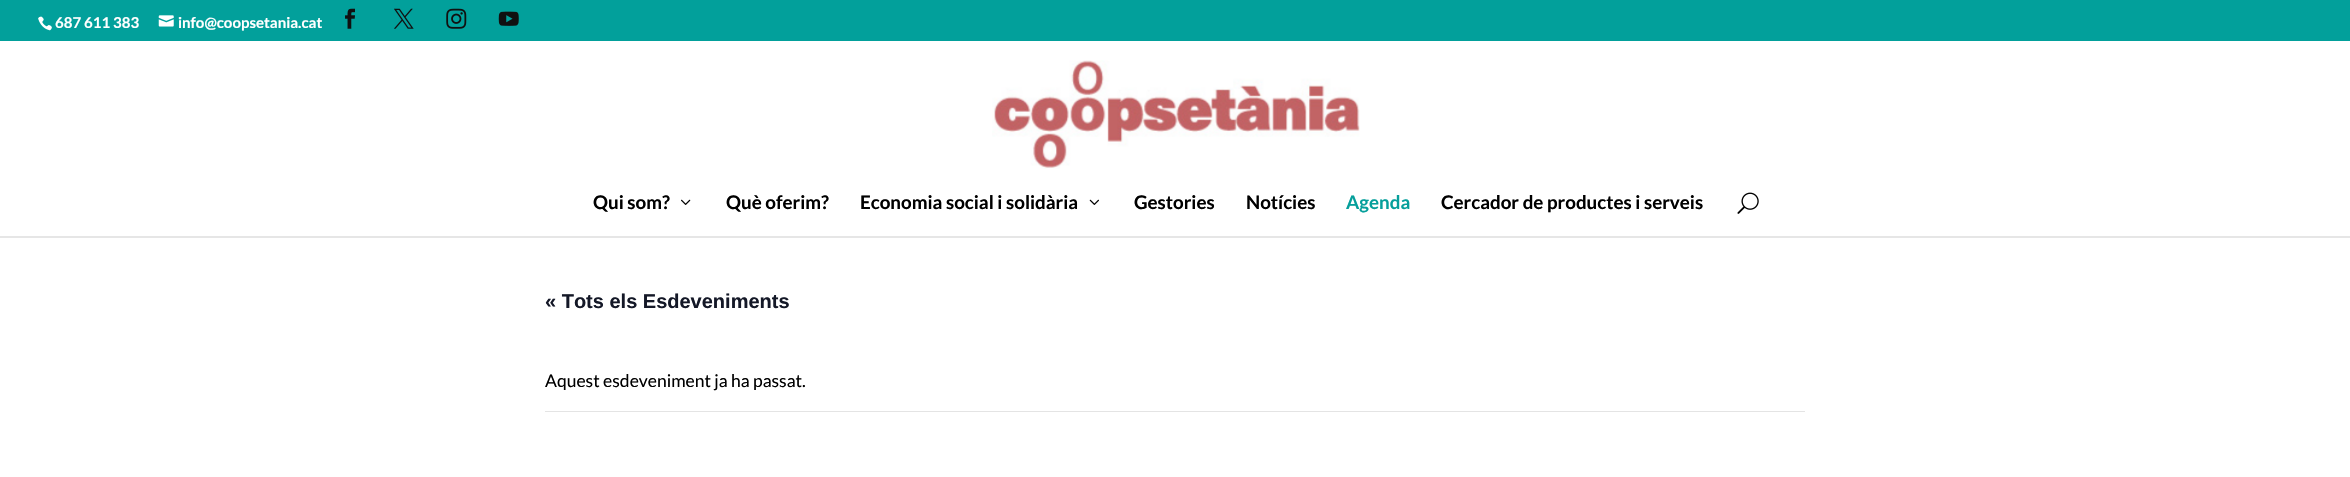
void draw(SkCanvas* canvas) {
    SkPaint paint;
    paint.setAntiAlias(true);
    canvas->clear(0xFFFFFFFF);
    paint.setColor(0xFF02A09B);
    canvas->drawRect(SkRect::MakeXYWH(0, 0, 2350, 41), paint);
    canvas->drawImageRect(SkImages::DeferredFromEncodedData(SkData::MakeFromFileName("img1.png")), SkRect::MakeXYWH(38, 16, 14, 15), SkSamplingOptions());
    SkFont font1(fontMgr->matchFamilyStyle("Lato", SkFontStyle::Bold()), 15);
    font1.setSubpixel(true);
    paint.setColor(0xFFFFFFFF);
    canvas->drawString("687 611 383", 55, 28, font1, paint);
    canvas->drawImageRect(SkImages::DeferredFromEncodedData(SkData::MakeFromFileName("img2.png")), SkRect::MakeXYWH(158, 15, 16, 12), SkSamplingOptions());
    canvas->drawString("info@coopsetania.cat", 178, 28, font1, paint);
    canvas->drawImageRect(SkImages::DeferredFromEncodedData(SkData::MakeFromFileName("img3.png")), SkRect::MakeXYWH(345, 8, 10, 21), SkSamplingOptions());
    canvas->drawImageRect(SkImages::DeferredFromEncodedData(SkData::MakeFromFileName("img4.png")), SkRect::MakeXYWH(394, 8, 20, 21), SkSamplingOptions());
    canvas->drawImageRect(SkImages::DeferredFromEncodedData(SkData::MakeFromFileName("img5.png")), SkRect::MakeXYWH(446, 8, 21, 21), SkSamplingOptions());
    canvas->drawImageRect(SkImages::DeferredFromEncodedData(SkData::MakeFromFileName("img6.png")), SkRect::MakeXYWH(498, 11, 21, 15), SkSamplingOptions());
    paint.setColor(0xFFE6E6E6);
    canvas->drawRect(SkRect::MakeXYWH(0, 236, 2350, 2), paint);
    canvas->drawImageRect(SkImages::DeferredFromEncodedData(SkData::MakeFromFileName("img7.png")), SkRect::MakeXYWH(992, 60, 368, 109), SkSamplingOptions());
    SkFont font2(fontMgr->matchFamilyStyle("Lato", SkFontStyle::Bold()), 18.75f);
    font2.setSubpixel(true);
    paint.setColor(0xFF000000);
    canvas->drawString("Qui som?", 593, 209, font2, paint);
    canvas->drawImageRect(SkImages::DeferredFromEncodedData(SkData::MakeFromFileName("img8.png")), SkRect::MakeXYWH(681, 199, 10, 6), SkSamplingOptions());
    canvas->drawString("Què oferim?", 726, 209, font2, paint);
    canvas->drawString("Economia social i solidària", 860, 209, font2, paint);
    canvas->drawImageRect(SkImages::DeferredFromEncodedData(SkData::MakeFromFileName("img9.png")), SkRect::MakeXYWH(1089, 199, 10, 6), SkSamplingOptions());
    canvas->drawString("Gestories", 1134, 209, font2, paint);
    canvas->drawString("Notícies", 1246, 209, font2, paint);
    paint.setColor(0xFF059F9B);
    canvas->drawString("Agenda", 1346, 209, font2, paint);
    paint.setColor(0xFF000000);
    canvas->drawString("Cercador de productes i serveis", 1441, 209, font2, paint);
    canvas->drawImageRect(SkImages::DeferredFromEncodedData(SkData::MakeFromFileName("img10.png")), SkRect::MakeXYWH(1737, 192, 22, 22), SkSamplingOptions());
    SkFont font3(fontMgr->matchFamilyStyle("Liberation Sans", SkFontStyle::Bold()), 20);
    font3.setSubpixel(true);
    paint.setColor(0xFF141827);
    canvas->drawString("« Tots els Esdeveniments", 545, 308, font3, paint);
    paint.setColor(0xFFE4E4E4);
    canvas->drawRect(SkRect::MakeXYWH(545, 411, 1260, 1), paint);
    SkFont font4(fontMgr->matchFamilyStyle("Lato", SkFontStyle::Normal()), 17.5f);
    font4.setSubpixel(true);
    paint.setColor(0xFF000000);
    canvas->drawString("Aquest esdeveniment ja ha passat.", 545, 387, font4, paint);
}
